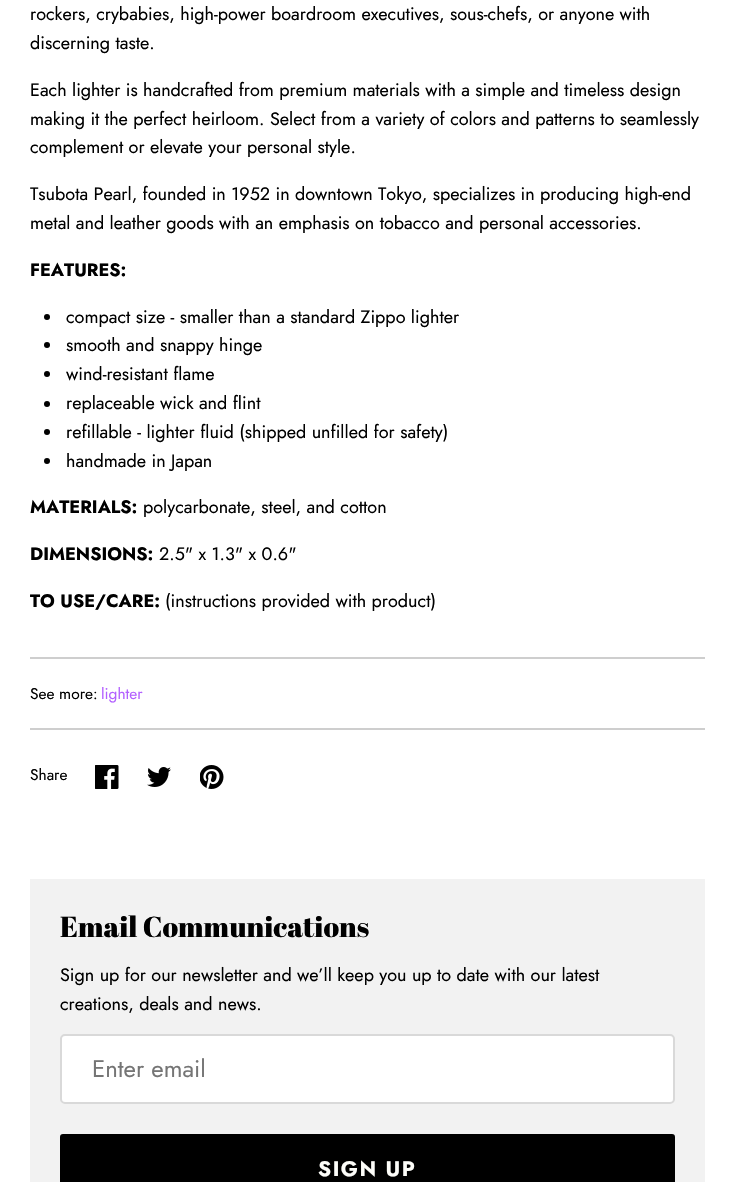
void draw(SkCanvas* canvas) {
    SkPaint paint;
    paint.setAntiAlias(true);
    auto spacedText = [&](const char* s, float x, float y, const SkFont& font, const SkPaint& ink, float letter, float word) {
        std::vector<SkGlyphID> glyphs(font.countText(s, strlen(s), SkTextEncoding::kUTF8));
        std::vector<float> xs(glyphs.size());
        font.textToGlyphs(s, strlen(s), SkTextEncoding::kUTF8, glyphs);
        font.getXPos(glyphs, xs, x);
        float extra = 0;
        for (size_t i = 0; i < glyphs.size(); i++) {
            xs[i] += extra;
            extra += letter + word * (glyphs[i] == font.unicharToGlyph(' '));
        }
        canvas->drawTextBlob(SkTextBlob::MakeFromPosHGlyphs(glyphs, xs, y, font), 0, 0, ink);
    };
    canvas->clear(0xFFFFFFFF);
    SkFont font1(fontMgr->matchFamilyStyle("Jost", SkFontStyle::Normal()), 18);
    font1.setSubpixel(true);
    paint.setColor(0xFF000000);
    canvas->drawString("rockers, crybabies, high-power boardroom executives, sous-chefs, or anyone with", 30, 20, font1, paint);
    canvas->drawString("discerning taste.", 30, 49, font1, paint);
    canvas->drawString("Each lighter is handcrafted from premium materials with a simple and timeless design", 30, 96, font1, paint);
    canvas->drawString("making it the perfect heirloom. Select from a variety of colors and patterns to seamlessly", 30, 125, font1, paint);
    canvas->drawString("complement or elevate your personal style.", 30, 153, font1, paint);
    canvas->drawString("Tsubota Pearl, founded in 1952 in downtown Tokyo, specializes in producing high-end", 30, 200, font1, paint);
    canvas->drawString("metal and leather goods with an emphasis on tobacco and personal accessories.", 30, 229, font1, paint);
    SkFont font2(fontMgr->matchFamilyStyle("Jost", SkFontStyle::Bold()), 18);
    font2.setSubpixel(true);
    canvas->drawString("FEATURES:", 30, 276, font2, paint);
    canvas->drawCircle(47, 317, 3, paint);
    canvas->drawString("compact size - smaller than a standard Zippo lighter", 66, 323, font1, paint);
    canvas->drawCircle(47, 345, 3, paint);
    canvas->drawString("smooth and snappy hinge", 66, 351, font1, paint);
    canvas->drawCircle(47, 374, 3, paint);
    canvas->drawString("wind-resistant flame", 66, 380, font1, paint);
    canvas->drawCircle(47, 404, 3, paint);
    canvas->drawString("replaceable wick and flint", 66, 409, font1, paint);
    canvas->drawCircle(47, 432, 3, paint);
    canvas->drawString("refillable - lighter fluid (shipped unfilled for safety)", 66, 438, font1, paint);
    canvas->drawCircle(47, 461, 3, paint);
    canvas->drawString("handmade in Japan", 66, 467, font1, paint);
    canvas->drawString("MATERIALS:", 30, 513, font2, paint);
    canvas->drawString("polycarbonate, steel, and cotton", 143, 513, font1, paint);
    canvas->drawString("DIMENSIONS:", 30, 560, font2, paint);
    canvas->drawString("2.5\" x 1.3\" x 0.6\"", 159, 560, font1, paint);
    canvas->drawString("TO USE/CARE:", 30, 607, font2, paint);
    canvas->drawString("(instructions provided with product)", 165, 607, font1, paint);
    paint.setColor(0xFFCECECE);
    canvas->drawRect(SkRect::MakeXYWH(30, 657, 675, 2), paint);
    SkFont font3(fontMgr->matchFamilyStyle("Jost", SkFontStyle::Normal()), 15.5f);
    font3.setSubpixel(true);
    paint.setColor(0xFF000000);
    canvas->drawString("See more:", 30, 699, font3, paint);
    paint.setColor(0xFFB360FF);
    canvas->drawString("lighter", 101, 699, font3, paint);
    paint.setColor(0xFFCECECE);
    canvas->drawRect(SkRect::MakeXYWH(30, 728, 675, 2), paint);
    paint.setColor(0xFF000000);
    canvas->drawString("Share", 30, 780, font3, paint);
    canvas->drawImageRect(SkImages::DeferredFromEncodedData(SkData::MakeFromFileName("img1.png")), SkRect::MakeXYWH(95, 765, 24, 24), SkSamplingOptions());
    canvas->drawImageRect(SkImages::DeferredFromEncodedData(SkData::MakeFromFileName("img2.png")), SkRect::MakeXYWH(147, 767, 24, 20), SkSamplingOptions());
    canvas->drawImageRect(SkImages::DeferredFromEncodedData(SkData::MakeFromFileName("img3.png")), SkRect::MakeXYWH(200, 765, 24, 24), SkSamplingOptions());
    paint.setColor(0xFFF2F2F2);
    canvas->drawRect(SkRect::MakeXYWH(30, 879, 675, 303), paint);
    SkFont font4(fontMgr->matchFamilyStyle("Abril Fatface", SkFontStyle::Normal()), 28.75f);
    font4.setSubpixel(true);
    paint.setColor(0xFF000000);
    canvas->drawString("Email Communications", 60, 937, font4, paint);
    canvas->drawString("Sign up for our newsletter and we’ll keep you up to date with our latest", 60, 981, font1, paint);
    canvas->drawString("creations, deals and news.", 60, 1010, font1, paint);
    paint.setColor(0xFFFFFFFF);
    canvas->drawRoundRect(SkRect::MakeXYWH(60, 1034, 615, 70), 5, 5, paint);
    paint.setStyle(SkPaint::kStroke_Style);
    paint.setStrokeWidth(2);
    paint.setColor(0x26000000);
    canvas->drawRoundRect(SkRect::MakeXYWH(61, 1035, 613, 68), 4, 4, paint);
    SkFont font5(fontMgr->matchFamilyStyle("Jost", SkFontStyle::Normal()), 24);
    font5.setSubpixel(true);
    paint.setStyle(SkPaint::kFill_Style);
    paint.setColor(0xFF757575);
    canvas->drawString("Enter email", 92, 1077, font5, paint);
    paint.setColor(0xFF000000);
    canvas->drawRoundRect(SkRect::MakeXYWH(61, 1135, 613, 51), 2, 2, paint);
    paint.setStyle(SkPaint::kStroke_Style);
    canvas->drawRoundRect(SkRect::MakeXYWH(61, 1135, 613, 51), 2, 2, paint);
    SkFont font6(fontMgr->matchFamilyStyle("Jost", SkFontStyle::Bold()), 21);
    font6.setSubpixel(true);
    paint.setStyle(SkPaint::kFill_Style);
    paint.setColor(0xFFFDFDF9);
    spacedText("SIGN UP", 318, 1176, font6, paint, 1.5f, 0);
}
